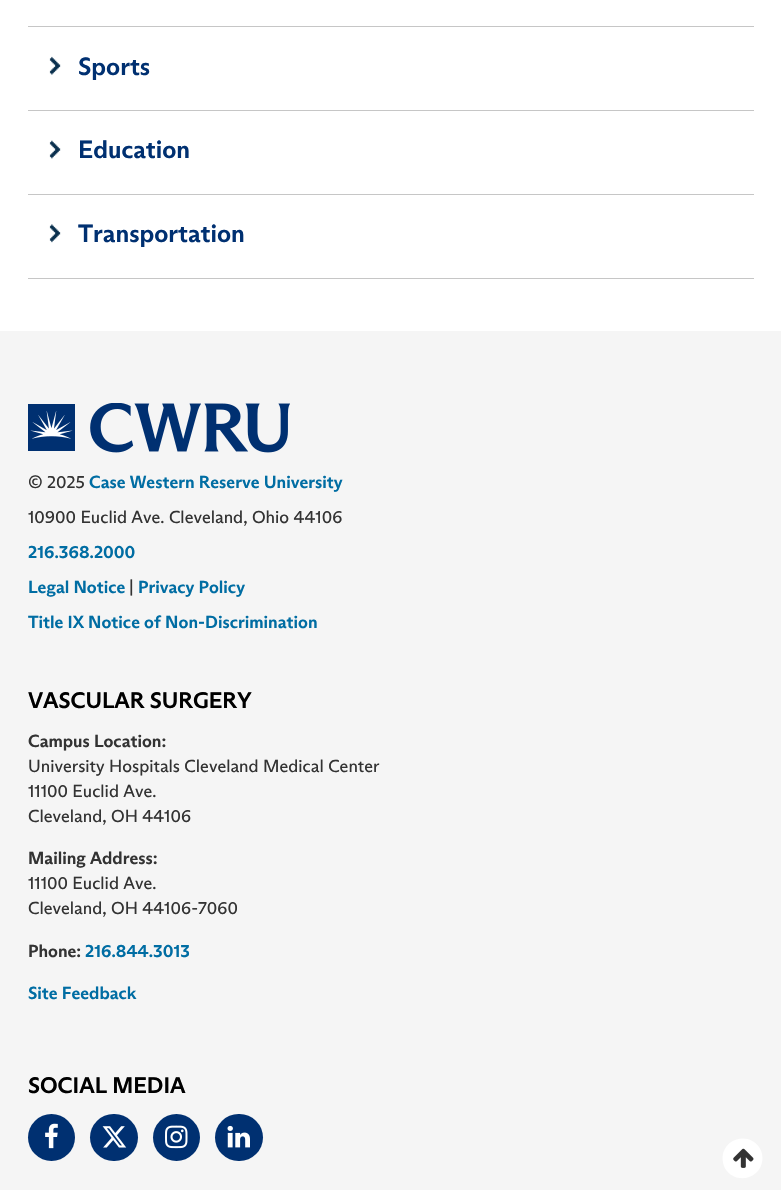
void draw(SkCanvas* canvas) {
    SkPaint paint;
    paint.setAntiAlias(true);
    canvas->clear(0xFFF5F5F5);
    paint.setColor(0xFFFFFFFF);
    canvas->drawRect(SkRect::MakeXYWH(0, 0, 781, 331), paint);
    paint.setColor(0xFFC6C6C6);
    canvas->drawRect(SkRect::MakeXYWH(28, 278, 726, 1), paint);
    canvas->drawRect(SkRect::MakeXYWH(28, 26, 726, 1), paint);
    canvas->drawImageRect(SkImages::DeferredFromEncodedData(SkData::MakeFromFileName("img1.png")), SkRect::MakeXYWH(49, 56, 12, 19), SkSamplingOptions());
    SkFont font1(fontMgr->matchFamilyStyle("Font", SkFontStyle::Bold()), 25);
    font1.setSubpixel(true);
    paint.setColor(0xFF003071);
    canvas->drawString("Sports", 78, 75, font1, paint);
    paint.setColor(0xFFC6C6C6);
    canvas->drawRect(SkRect::MakeXYWH(28, 110, 726, 1), paint);
    canvas->drawImageRect(SkImages::DeferredFromEncodedData(SkData::MakeFromFileName("img2.png")), SkRect::MakeXYWH(49, 140, 12, 19), SkSamplingOptions());
    paint.setColor(0xFF003071);
    canvas->drawString("Education", 78, 158, font1, paint);
    paint.setColor(0xFFC6C6C6);
    canvas->drawRect(SkRect::MakeXYWH(28, 194, 726, 1), paint);
    canvas->drawImageRect(SkImages::DeferredFromEncodedData(SkData::MakeFromFileName("img3.png")), SkRect::MakeXYWH(49, 224, 12, 19), SkSamplingOptions());
    paint.setColor(0xFF003071);
    canvas->drawString("Transportation", 78, 242, font1, paint);
    canvas->drawImageRect(SkImages::DeferredFromEncodedData(SkData::MakeFromFileName("img4.png")), SkRect::MakeXYWH(28, 403, 262, 50), SkSamplingOptions());
    SkFont font2(fontMgr->matchFamilyStyle("Font", SkFontStyle::Normal()), 17.5f);
    font2.setSubpixel(true);
    paint.setColor(0xFF333333);
    canvas->drawString("© 2025", 28, 488, font2, paint);
    SkFont font3(fontMgr->matchFamilyStyle("Font", SkFontStyle::Bold()), 17.5f);
    font3.setSubpixel(true);
    paint.setColor(0xFF006DA3);
    canvas->drawString("Case Western Reserve University", 89, 488, font3, paint);
    paint.setColor(0xFF333333);
    canvas->drawString("10900 Euclid Ave. Cleveland, Ohio 44106", 28, 523, font2, paint);
    paint.setColor(0xFF006DA3);
    canvas->drawString("216.368.2000", 28, 558, font3, paint);
    canvas->drawString("Legal Notice", 28, 593, font3, paint);
    paint.setColor(0xFF333333);
    canvas->drawString("|", 129, 593, font2, paint);
    paint.setColor(0xFF006DA3);
    canvas->drawString("Privacy Policy", 138, 593, font3, paint);
    canvas->drawString("Title IX Notice of Non-Discrimination", 28, 628, font3, paint);
    SkFont font4(fontMgr->matchFamilyStyle("Font", SkFontStyle::Bold()), 22.5f);
    font4.setSubpixel(true);
    paint.setColor(0xFF000000);
    canvas->drawString("VASCULAR SURGERY", 28, 708, font4, paint);
    paint.setColor(0xFF333333);
    canvas->drawString("Campus Location:", 28, 747, font3, paint);
    canvas->drawString("University Hospitals Cleveland Medical Center", 28, 772, font2, paint);
    canvas->drawString("11100 Euclid Ave.", 28, 797, font2, paint);
    canvas->drawString("Cleveland, OH 44106", 28, 822, font2, paint);
    canvas->drawString("Mailing Address:", 28, 864, font3, paint);
    canvas->drawString("11100 Euclid Ave.", 28, 889, font2, paint);
    canvas->drawString("Cleveland, OH 44106-7060", 28, 914, font2, paint);
    canvas->drawString("Phone:", 28, 957, font3, paint);
    paint.setColor(0xFF006DA3);
    canvas->drawString("216.844.3013", 85, 957, font3, paint);
    canvas->drawString("Site Feedback", 28, 999, font3, paint);
    paint.setColor(0xFF000000);
    canvas->drawString("SOCIAL MEDIA", 28, 1093, font4, paint);
    paint.setColor(0xFF003071);
    canvas->drawCircle(51.5f, 1137.5f, 23.5f, paint);
    canvas->drawImageRect(SkImages::DeferredFromEncodedData(SkData::MakeFromFileName("img5.png")), SkRect::MakeXYWH(45, 1123, 13, 26), SkSamplingOptions());
    canvas->drawRoundRect(SkRect::MakeXYWH(90, 1114, 48, 47), 23.5f, 23.5f, paint);
    canvas->drawImageRect(SkImages::DeferredFromEncodedData(SkData::MakeFromFileName("img6.png")), SkRect::MakeXYWH(102, 1126, 25, 22), SkSamplingOptions());
    canvas->drawCircle(176.5f, 1137.5f, 23.5f, paint);
    canvas->drawImageRect(SkImages::DeferredFromEncodedData(SkData::MakeFromFileName("img7.png")), SkRect::MakeXYWH(165, 1125, 23, 24), SkSamplingOptions());
    canvas->drawRoundRect(SkRect::MakeXYWH(215, 1114, 48, 47), 23.5f, 23.5f, paint);
    canvas->drawImageRect(SkImages::DeferredFromEncodedData(SkData::MakeFromFileName("img8.png")), SkRect::MakeXYWH(227, 1125, 23, 23), SkSamplingOptions());
    paint.setColor(0xFFFFFFFF);
    canvas->drawPath(SkPathBuilder().moveTo(760, 1148.5f).cubicTo(762, 1151.5f, 762.5f, 1155.5f, 762.5f, 1159.5f).cubicTo(761, 1179.5f, 735, 1185, 725, 1168.5f).cubicTo(723, 1165, 722.5f, 1161, 722.5f, 1157).cubicTo(724, 1137.5f, 750, 1131.5f, 760, 1148.5f).close().detach(), paint);
    canvas->drawImageRect(SkImages::DeferredFromEncodedData(SkData::MakeFromFileName("img9.png")), SkRect::MakeXYWH(733, 1148, 21, 20), SkSamplingOptions());
}
